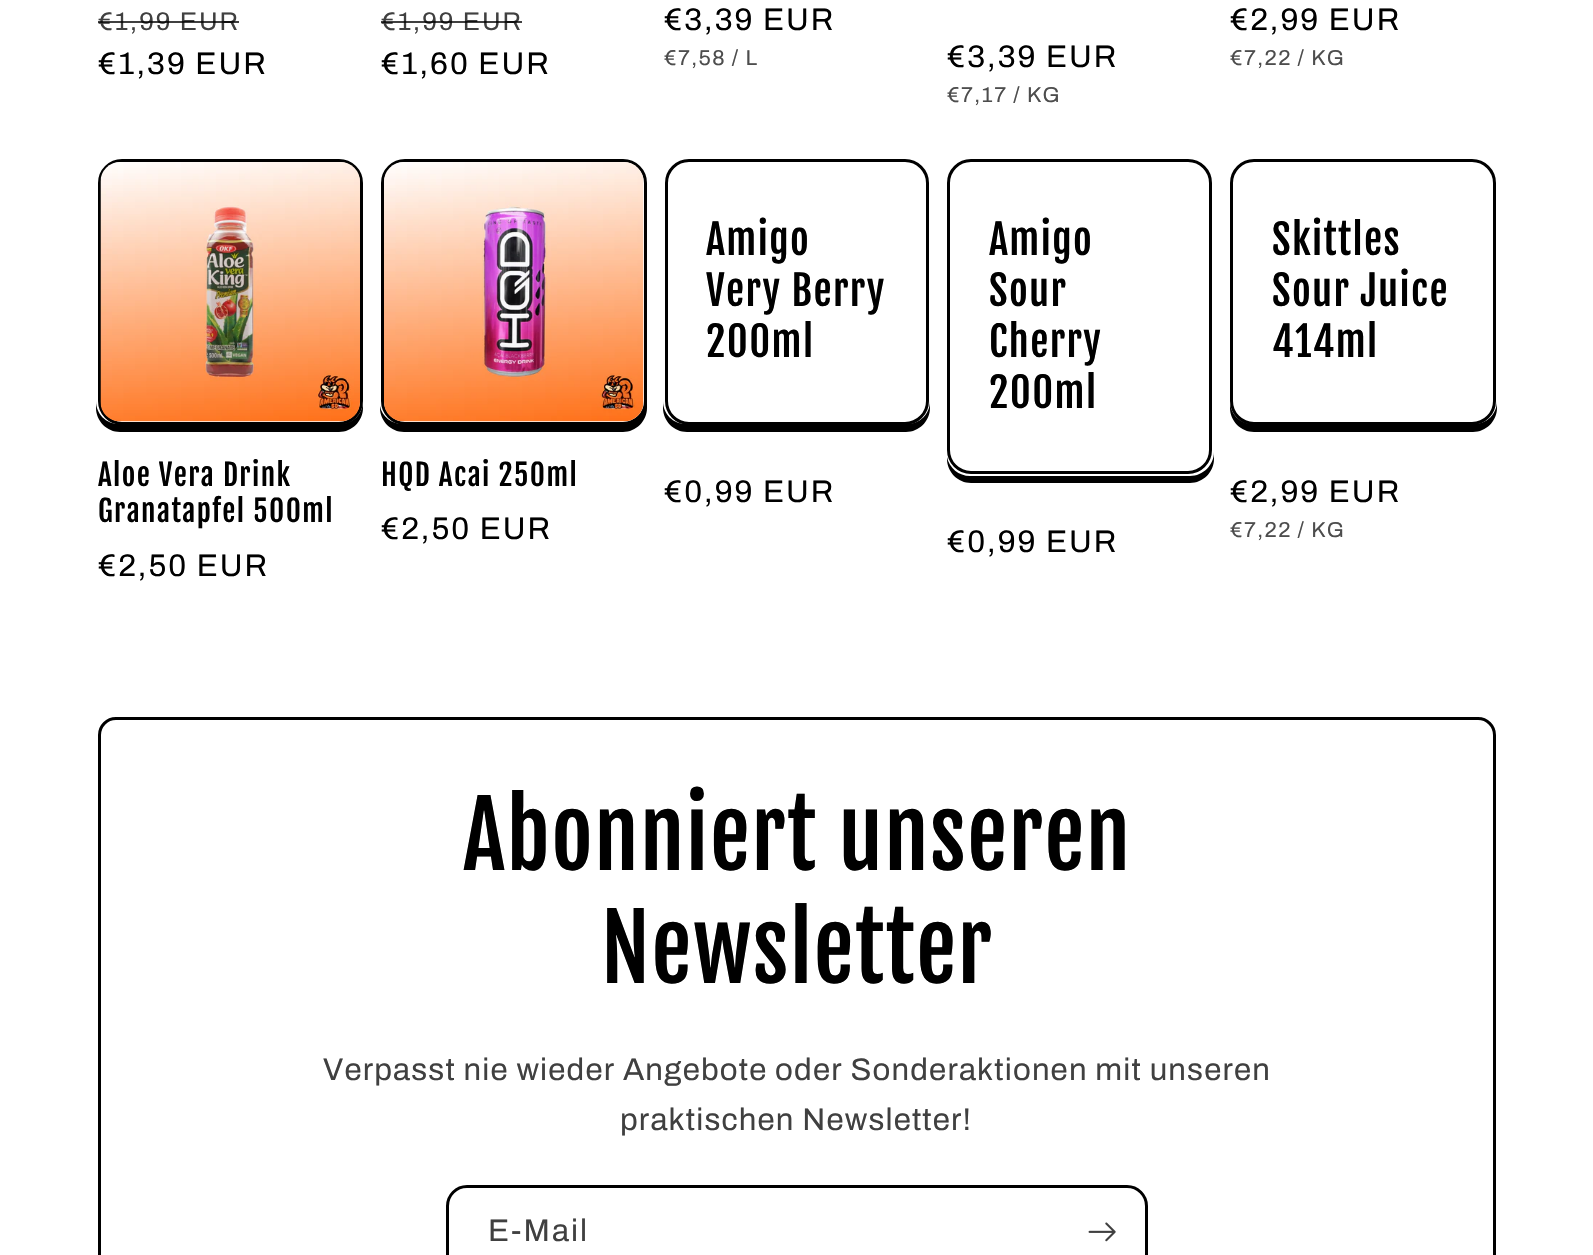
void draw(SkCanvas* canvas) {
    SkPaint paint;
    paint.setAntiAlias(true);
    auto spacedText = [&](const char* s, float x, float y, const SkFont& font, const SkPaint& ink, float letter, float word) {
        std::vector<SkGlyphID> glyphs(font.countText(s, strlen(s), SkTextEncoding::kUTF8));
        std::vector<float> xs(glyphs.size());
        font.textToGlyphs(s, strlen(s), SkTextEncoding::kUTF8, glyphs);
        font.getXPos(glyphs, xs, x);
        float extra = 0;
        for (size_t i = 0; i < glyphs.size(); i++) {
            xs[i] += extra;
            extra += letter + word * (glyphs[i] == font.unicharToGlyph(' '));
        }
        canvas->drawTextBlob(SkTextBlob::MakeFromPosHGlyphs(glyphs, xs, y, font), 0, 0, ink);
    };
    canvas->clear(0xFFFFFFFF);
    SkFont font1(fontMgr->matchFamilyStyle("Archivo", SkFontStyle::Normal()), 25.5f);
    font1.setSubpixel(true);
    paint.setColor(0xFF404040);
    spacedText("€1,99 EUR", 98, 30, font1, paint, 2, 0);
    paint.setColor(0xBF000000);
    canvas->drawRect(SkRect::MakeXYWH(98, 21, 141, 2), paint);
    SkFont font2(fontMgr->matchFamilyStyle("Archivo", SkFontStyle::Normal()), 31.2f);
    font2.setSubpixel(true);
    paint.setColor(0xFF000000);
    spacedText("€1,39 EUR", 98, 74, font2, paint, 2, 0);
    paint.setColor(0xFF404040);
    spacedText("€1,99 EUR", 381, 30, font1, paint, 2, 0);
    paint.setColor(0xBF000000);
    canvas->drawRect(SkRect::MakeXYWH(381, 21, 141, 2), paint);
    paint.setColor(0xFF000000);
    spacedText("€1,60 EUR", 381, 74, font2, paint, 2, 0);
    spacedText("€3,39 EUR", 664, 30, font2, paint, 2, 0);
    SkFont font3(fontMgr->matchFamilyStyle("Archivo", SkFontStyle::Normal()), 21.5f);
    font3.setSubpixel(true);
    paint.setColor(0xFF4D4D4D);
    spacedText("€7,58 / L", 664, 65, font3, paint, 1.4f, 0);
    paint.setColor(0xFF000000);
    spacedText("€3,39 EUR", 947, 67, font2, paint, 2, 0);
    paint.setColor(0xFF4D4D4D);
    spacedText("€7,17 / KG", 947, 102, font3, paint, 1.4f, 0);
    paint.setColor(0xFF000000);
    spacedText("€2,99 EUR", 1230, 30, font2, paint, 2, 0);
    paint.setColor(0xFF4D4D4D);
    spacedText("€7,22 / KG", 1230, 65, font3, paint, 1.4f, 0);
    paint.setColor(0xFF000000);
    canvas->drawPath(SkPathBuilder().moveTo(96, 401).lineTo(96, 408).cubicTo(96, 421, 107, 432, 120, 432).lineTo(339, 432).cubicTo(352, 432, 363, 421, 363, 408).lineTo(363, 401).cubicTo(363, 414, 353, 424, 340, 424).lineTo(119, 424).cubicTo(106, 424, 96, 414, 96, 401).close().detach(), paint);
    paint.setColor(0xFFFFFFFF);
    canvas->drawRoundRect(SkRect::MakeXYWH(99.5f, 160.5f, 262, 263), 22.5f, 22.5f, paint);
    paint.setStyle(SkPaint::kStroke_Style);
    paint.setStrokeWidth(3);
    paint.setColor(0xFF000000);
    canvas->drawRoundRect(SkRect::MakeXYWH(99.5f, 160.5f, 262, 263), 22.5f, 22.5f, paint);
    canvas->drawImageRect(SkImages::DeferredFromEncodedData(SkData::MakeFromFileName("img1.png")), SkRect::MakeXYWH(100, 162, 260, 260), SkSamplingOptions());
    SkFont font4(fontMgr->matchFamilyStyle("Fjalla One", SkFontStyle::Normal()), 29.25f);
    font4.setSubpixel(true);
    paint.setStyle(SkPaint::kFill_Style);
    spacedText("Aloe Vera Drink", 98, 486, font4, paint, 1.4f, 0);
    spacedText("Granatapfel 500ml", 98, 522, font4, paint, 1.4f, 0);
    spacedText("€2,50 EUR", 98, 576, font2, paint, 2, 0);
    canvas->drawPath(SkPathBuilder().moveTo(380, 406).lineTo(380, 408).cubicTo(380, 421, 391, 432, 404, 432).lineTo(623, 432).cubicTo(636, 432, 647, 421, 647, 408).lineTo(647, 189).lineTo(646, 184).lineTo(646, 401).cubicTo(646, 414, 636, 424, 623, 424).lineTo(403, 424).cubicTo(392, 424, 382, 417, 380, 406).close().detach(), paint);
    paint.setColor(0xFFFFFFFF);
    canvas->drawRoundRect(SkRect::MakeXYWH(382.5f, 160.5f, 263, 263), 22.5f, 22.5f, paint);
    paint.setStyle(SkPaint::kStroke_Style);
    paint.setColor(0xFF000000);
    canvas->drawRoundRect(SkRect::MakeXYWH(382.5f, 160.5f, 263, 263), 22.5f, 22.5f, paint);
    canvas->drawImageRect(SkImages::DeferredFromEncodedData(SkData::MakeFromFileName("img2.png")), SkRect::MakeXYWH(384, 162, 260, 260), SkSamplingOptions());
    paint.setStyle(SkPaint::kFill_Style);
    spacedText("HQD Acai 250ml", 381, 486, font4, paint, 1.4f, 0);
    spacedText("€2,50 EUR", 381, 539, font2, paint, 2, 0);
    canvas->drawPath(SkPathBuilder().moveTo(663, 401).lineTo(663, 408).cubicTo(663, 421, 674, 432, 687, 432).lineTo(906, 432).cubicTo(919, 432, 930, 421, 930, 408).lineTo(930, 401).cubicTo(930, 414, 920, 424, 907, 424).lineTo(686, 424).cubicTo(673, 424, 663, 414, 663, 401).close().detach(), paint);
    paint.setColor(0xFFFFFFFF);
    canvas->drawRoundRect(SkRect::MakeXYWH(666.5f, 160.5f, 261, 263), 22.5f, 22.5f, paint);
    paint.setStyle(SkPaint::kStroke_Style);
    paint.setColor(0xFF000000);
    canvas->drawRoundRect(SkRect::MakeXYWH(666.5f, 160.5f, 261, 263), 22.5f, 22.5f, paint);
    SkFont font5(fontMgr->matchFamilyStyle("Fjalla One", SkFontStyle::Normal()), 40.5f);
    font5.setSubpixel(true);
    paint.setStyle(SkPaint::kFill_Style);
    spacedText("Amigo", 706, 255, font5, paint, 1.4f, 0);
    spacedText("Very Berry", 706, 306, font5, paint, 1.4f, 0);
    spacedText("200ml", 706, 357, font5, paint, 1.4f, 0);
    spacedText("€0,99 EUR", 664, 502, font2, paint, 2, 0);
    canvas->drawPath(SkPathBuilder().moveTo(947, 457).lineTo(947, 459).cubicTo(947, 472, 958, 483, 971, 483).lineTo(1190, 483).cubicTo(1203, 483, 1214, 472, 1214, 459).lineTo(1214, 189).lineTo(1214, 184).lineTo(1214, 452).cubicTo(1214, 465, 1203, 476, 1190, 476).lineTo(970, 476).cubicTo(959, 476, 949, 468, 947, 457).close().detach(), paint);
    paint.setStyle(SkPaint::kStroke_Style);
    canvas->drawRoundRect(SkRect::MakeXYWH(948.5f, 160.5f, 262, 312), 22.5f, 22.5f, paint);
    paint.setStyle(SkPaint::kFill_Style);
    spacedText("Amigo", 989, 255, font5, paint, 1.4f, 0);
    spacedText("Sour", 989, 306, font5, paint, 1.4f, 0);
    spacedText("Cherry", 989, 357, font5, paint, 1.4f, 0);
    spacedText("200ml", 989, 408, font5, paint, 1.4f, 0);
    spacedText("€0,99 EUR", 947, 552, font2, paint, 2, 0);
    canvas->drawPath(SkPathBuilder().moveTo(1230, 401).lineTo(1230, 408).cubicTo(1230, 421, 1241, 432, 1254, 432).lineTo(1473, 432).cubicTo(1486, 432, 1497, 421, 1497, 408).lineTo(1497, 401).cubicTo(1497, 414, 1487, 424, 1474, 424).lineTo(1253, 424).cubicTo(1240, 424, 1230, 414, 1230, 401).close().detach(), paint);
    paint.setColor(0xFFFFFFFF);
    canvas->drawRoundRect(SkRect::MakeXYWH(1231.5f, 160.5f, 263, 263), 22.5f, 22.5f, paint);
    paint.setStyle(SkPaint::kStroke_Style);
    paint.setColor(0xFF000000);
    canvas->drawRoundRect(SkRect::MakeXYWH(1231.5f, 160.5f, 263, 263), 22.5f, 22.5f, paint);
    paint.setStyle(SkPaint::kFill_Style);
    spacedText("Skittles", 1272, 255, font5, paint, 1.4f, 0);
    spacedText("Sour Juice", 1272, 306, font5, paint, 1.4f, 0);
    spacedText("414ml", 1272, 357, font5, paint, 1.4f, 0);
    spacedText("€2,99 EUR", 1230, 502, font2, paint, 2, 0);
    paint.setColor(0xFF4D4D4D);
    spacedText("€7,22 / KG", 1230, 537, font3, paint, 1.4f, 0);
    paint.setStyle(SkPaint::kStroke_Style);
    paint.setColor(0xFF000000);
    canvas->drawRoundRect(SkRect::MakeXYWH(99.5f, 718.5f, 1395, 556), 16.5f, 16.5f, paint);
    SkFont font6(fontMgr->matchFamilyStyle("Fjalla One", SkFontStyle::Normal()), 90);
    font6.setSubpixel(true);
    paint.setStyle(SkPaint::kFill_Style);
    spacedText("Abonniert unseren", 463, 870, font6, paint, 1.4f, 0);
    spacedText("Newsletter", 601, 983, font6, paint, 1.4f, 0);
    paint.setColor(0xFF404040);
    spacedText("Verpasst nie wieder Angebote oder Sonderaktionen mit unseren", 323, 1080, font2, paint, 1.17f, 0);
    spacedText("praktischen Newsletter!", 620, 1130, font2, paint, 1.17f, 0);
    paint.setStyle(SkPaint::kStroke_Style);
    paint.setColor(0xFF000000);
    canvas->drawRoundRect(SkRect::MakeXYWH(447.5f, 1186.5f, 699, 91), 19.5f, 19.5f, paint);
    paint.setStyle(SkPaint::kFill_Style);
    paint.setColor(0xFF404040);
    spacedText("E-Mail", 488, 1241, font2, paint, 2, 0);
    canvas->drawImageRect(SkImages::DeferredFromEncodedData(SkData::MakeFromFileName("img3.png")), SkRect::MakeXYWH(1088, 1222, 28, 20), SkSamplingOptions());
}
